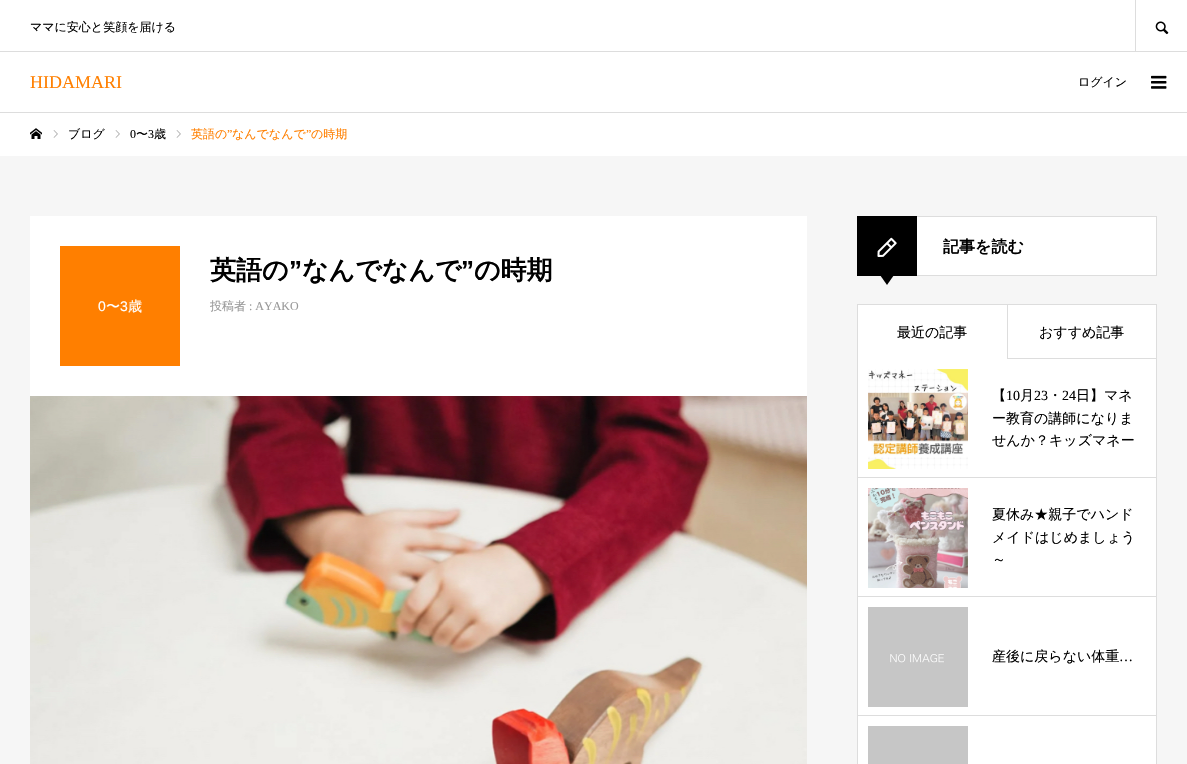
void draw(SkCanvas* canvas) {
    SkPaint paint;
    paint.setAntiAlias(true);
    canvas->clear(0xFFF6F6F6);
    paint.setColor(0xFFFFFFFF);
    canvas->drawRect(SkRect::MakeXYWH(0, 0, 1187, 112), paint);
    paint.setColor(0xFFDDDDDD);
    canvas->drawRect(SkRect::MakeXYWH(0, 112, 1187, 1), paint);
    SkFont font1(fontMgr->matchFamilyStyle("WenQuanYi Zen Hei", SkFontStyle(500, SkFontStyle::kNormal_Width, SkFontStyle::kUpright_Slant)), 12);
    font1.setSubpixel(true);
    paint.setColor(0xFF000000);
    canvas->drawString("ママに安心と笑顔を届ける", 30, 31, font1, paint);
    SkFont font2(fontMgr->matchFamilyStyle("Liberation Serif", SkFontStyle::Normal()), 18);
    font2.setSubpixel(true);
    paint.setColor(0xFFFF7F00);
    canvas->drawString("HIDAMARI", 30, 88, font2, paint);
    paint.setColor(0xFFDDDDDD);
    canvas->drawRect(SkRect::MakeXYWH(0, 51, 1187, 1), paint);
    canvas->drawRect(SkRect::MakeXYWH(1135, 0, 1, 51), paint);
    canvas->drawImageRect(SkImages::DeferredFromEncodedData(SkData::MakeFromFileName("img1.png")), SkRect::MakeXYWH(1155, 21, 14, 14), SkSamplingOptions());
    paint.setColor(0xFF000000);
    canvas->drawString("ログイン", 1078, 86, font1, paint);
    canvas->drawImageRect(SkImages::DeferredFromEncodedData(SkData::MakeFromFileName("img2.png")), SkRect::MakeXYWH(1151, 75, 16, 14), SkSamplingOptions());
    paint.setColor(0xFFFFFFFF);
    canvas->drawRect(SkRect::MakeXYWH(0, 113, 1187, 43), paint);
    canvas->drawImageRect(SkImages::DeferredFromEncodedData(SkData::MakeFromFileName("img3.png")), SkRect::MakeXYWH(30, 128, 12, 11), SkSamplingOptions());
    canvas->drawImageRect(SkImages::DeferredFromEncodedData(SkData::MakeFromFileName("img4.png")), SkRect::MakeXYWH(53, 130, 5, 8), SkSamplingOptions());
    paint.setColor(0xFF000000);
    canvas->drawString("ブログ", 68, 138, font1, paint);
    canvas->drawImageRect(SkImages::DeferredFromEncodedData(SkData::MakeFromFileName("img4.png")), SkRect::MakeXYWH(115, 130, 5, 8), SkSamplingOptions());
    SkFont font3(fontMgr->matchFamilyStyle("Liberation Serif", SkFontStyle::Normal()), 12);
    font3.setSubpixel(true);
    canvas->drawString("0", 130, 138, font3, paint);
    canvas->drawString("〜", 136, 138, font1, paint);
    canvas->drawString("3", 148, 138, font3, paint);
    canvas->drawString("歳", 154, 138, font1, paint);
    canvas->drawImageRect(SkImages::DeferredFromEncodedData(SkData::MakeFromFileName("img4.png")), SkRect::MakeXYWH(176, 130, 5, 8), SkSamplingOptions());
    paint.setColor(0xFFFF7F00);
    canvas->drawString("英語の", 191, 138, font1, paint);
    canvas->drawString("”", 227, 138, font3, paint);
    canvas->drawString("なんでなんで", 232, 138, font1, paint);
    canvas->drawString("”", 306, 138, font3, paint);
    canvas->drawString("の時期", 311, 138, font1, paint);
    paint.setColor(0xFFFFFFFF);
    canvas->drawRect(SkRect::MakeXYWH(30, 216, 777, 180), paint);
    paint.setColor(0xFFFF7F00);
    canvas->drawRect(SkRect::MakeXYWH(60, 246, 120, 120), paint);
    SkFont font4(fontMgr->matchFamilyStyle("Liberation Sans", SkFontStyle::Normal()), 14);
    font4.setSubpixel(true);
    paint.setColor(0xFFFFFFFF);
    canvas->drawString("0", 98, 311, font4, paint);
    SkFont font5(fontMgr->matchFamilyStyle("WenQuanYi Zen Hei", SkFontStyle(500, SkFontStyle::kNormal_Width, SkFontStyle::kUpright_Slant)), 14);
    font5.setSubpixel(true);
    canvas->drawString("〜", 106, 311, font5, paint);
    canvas->drawString("3", 120, 311, font4, paint);
    canvas->drawString("歳", 128, 311, font5, paint);
    SkFont font6(fontMgr->matchFamilyStyle("WenQuanYi Zen Hei", SkFontStyle::Bold()), 26);
    font6.setSubpixel(true);
    paint.setColor(0xFF000000);
    canvas->drawString("英語の", 210, 279, font6, paint);
    SkFont font7(fontMgr->matchFamilyStyle("Liberation Sans", SkFontStyle::Bold()), 26);
    font7.setSubpixel(true);
    canvas->drawString("”", 289, 279, font7, paint);
    canvas->drawString("なんでなんで", 302, 279, font6, paint);
    canvas->drawString("”", 461, 279, font7, paint);
    canvas->drawString("の時期", 474, 279, font6, paint);
    paint.setColor(0xFF999999);
    canvas->drawString("投稿者", 210, 310, font1, paint);
    canvas->drawString(": AYAKO", 249, 310, font3, paint);
    canvas->drawImageRect(SkImages::DeferredFromEncodedData(SkData::MakeFromFileName("img5.png")), SkRect::MakeXYWH(30, 396, 777, 368), SkSamplingOptions());
    paint.setColor(0xFFFFFFFF);
    canvas->drawRect(SkRect::MakeXYWH(917, 217, 239, 58), paint);
    paint.setStyle(SkPaint::kStroke_Style);
    paint.setStrokeWidth(1);
    paint.setColor(0xFFDDDDDD);
    canvas->drawRect(SkRect::MakeXYWH(857.5f, 216.5f, 299, 59), paint);
    paint.setStyle(SkPaint::kFill_Style);
    paint.setColor(0xFF000000);
    canvas->drawRect(SkRect::MakeXYWH(857, 216, 60, 60), paint);
    canvas->drawImageRect(SkImages::DeferredFromEncodedData(SkData::MakeFromFileName("img6.png")), SkRect::MakeXYWH(877, 237, 20, 20), SkSamplingOptions());
    SkFont font8(fontMgr->matchFamilyStyle("WenQuanYi Zen Hei", SkFontStyle::Bold()), 16);
    font8.setSubpixel(true);
    canvas->drawString("記事を読む", 943, 252, font8, paint);
    canvas->drawPath(SkPathBuilder().moveTo(880, 275).lineTo(894, 275).lineTo(887, 285).close().detach(), paint);
    paint.setColor(0xFFFFFFFF);
    canvas->drawRect(SkRect::MakeXYWH(857.5f, 358.5f, 299, 119), paint);
    paint.setStyle(SkPaint::kStroke_Style);
    paint.setColor(0xFFDDDDDD);
    canvas->drawRect(SkRect::MakeXYWH(857.5f, 358.5f, 299, 119), paint);
    paint.setStyle(SkPaint::kFill_Style);
    paint.setColor(0xFFFFFFFF);
    canvas->drawRect(SkRect::MakeXYWH(858, 305, 149, 54), paint);
    paint.setColor(0xFFDDDDDD);
    canvas->drawRect(SkRect::MakeXYWH(857, 304, 150, 1), paint);
    canvas->drawRect(SkRect::MakeXYWH(857, 304, 1, 55), paint);
    paint.setColor(0xFF000000);
    canvas->drawString("最近の記事", 897, 337, font5, paint);
    paint.setColor(0xFFFFFFFF);
    canvas->drawRect(SkRect::MakeXYWH(1007.5f, 304.5f, 149, 54), paint);
    paint.setStyle(SkPaint::kStroke_Style);
    paint.setColor(0xFFDDDDDD);
    canvas->drawRect(SkRect::MakeXYWH(1007.5f, 304.5f, 149, 54), paint);
    paint.setStyle(SkPaint::kFill_Style);
    paint.setColor(0xFF000000);
    canvas->drawString("おすすめ記事", 1039, 337, font5, paint);
    canvas->drawImageRect(SkImages::DeferredFromEncodedData(SkData::MakeFromFileName("img7.png")), SkRect::MakeXYWH(868, 369, 100, 100), SkSamplingOptions());
    canvas->drawString("【", 992, 400, font5, paint);
    SkFont font9(fontMgr->matchFamilyStyle("Liberation Serif", SkFontStyle::Normal()), 14);
    font9.setSubpixel(true);
    canvas->drawString("10", 1006, 400, font9, paint);
    canvas->drawString("月", 1020, 400, font5, paint);
    canvas->drawString("23", 1034, 400, font9, paint);
    canvas->drawString("・", 1048, 400, font5, paint);
    canvas->drawString("24", 1062, 400, font9, paint);
    canvas->drawString("日】マネ", 1076, 400, font5, paint);
    canvas->drawString("ー教育の講師になりま", 992, 423, font5, paint);
    canvas->drawString("せんか？キッズマネー", 992, 445, font5, paint);
    paint.setColor(0xFFFFFFFF);
    canvas->drawRect(SkRect::MakeXYWH(857.5f, 477.5f, 299, 119), paint);
    paint.setStyle(SkPaint::kStroke_Style);
    paint.setColor(0xFFDDDDDD);
    canvas->drawRect(SkRect::MakeXYWH(857.5f, 477.5f, 299, 119), paint);
    canvas->drawImageRect(SkImages::DeferredFromEncodedData(SkData::MakeFromFileName("img8.png")), SkRect::MakeXYWH(868, 488, 100, 100), SkSamplingOptions());
    paint.setStyle(SkPaint::kFill_Style);
    paint.setColor(0xFF000000);
    canvas->drawString("夏休み★親子でハンド", 992, 519, font5, paint);
    canvas->drawString("メイドはじめましょう", 992, 542, font5, paint);
    canvas->drawString("～", 992, 564, font5, paint);
    paint.setColor(0xFFFFFFFF);
    canvas->drawRect(SkRect::MakeXYWH(857.5f, 596.5f, 299, 119), paint);
    paint.setStyle(SkPaint::kStroke_Style);
    paint.setColor(0xFFDDDDDD);
    canvas->drawRect(SkRect::MakeXYWH(857.5f, 596.5f, 299, 119), paint);
    canvas->drawImageRect(SkImages::DeferredFromEncodedData(SkData::MakeFromFileName("img9.png")), SkRect::MakeXYWH(868, 607, 100, 100), SkSamplingOptions());
    paint.setStyle(SkPaint::kFill_Style);
    paint.setColor(0xFF000000);
    canvas->drawString("産後に戻らない体重", 992, 661, font5, paint);
    canvas->drawString("…", 1119, 661, font9, paint);
    paint.setColor(0xFFFFFFFF);
    canvas->drawRect(SkRect::MakeXYWH(857.5f, 715.5f, 299, 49), paint);
    paint.setStyle(SkPaint::kStroke_Style);
    paint.setColor(0xFFDDDDDD);
    canvas->drawRect(SkRect::MakeXYWH(857.5f, 715.5f, 299, 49), paint);
    paint.setStyle(SkPaint::kFill_Style);
    paint.setColor(0xFFC6C6C6);
    canvas->drawRect(SkRect::MakeXYWH(868, 726, 100, 38), paint);
}
